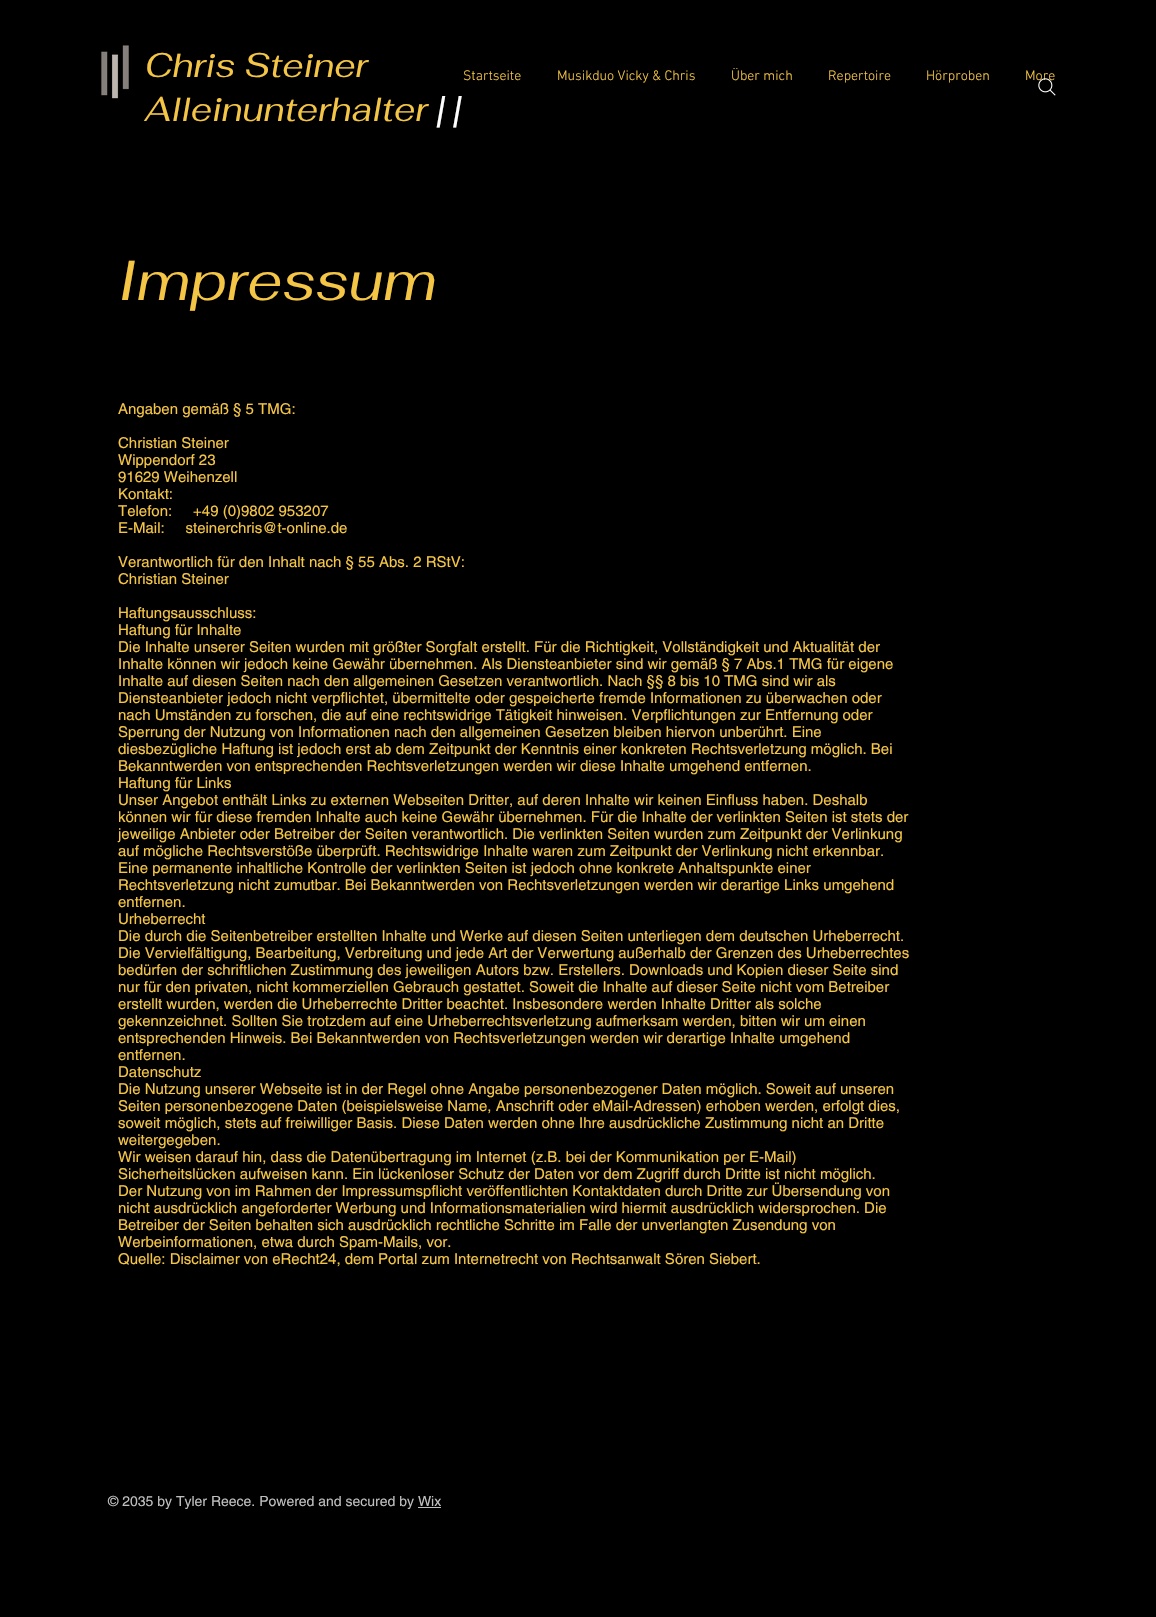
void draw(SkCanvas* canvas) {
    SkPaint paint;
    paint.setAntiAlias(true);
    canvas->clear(0xFF000000);
    canvas->drawImageRect(SkImages::DeferredFromEncodedData(SkData::MakeFromFileName("img1.png")), SkRect::MakeXYWH(101, 45, 28, 54), SkSamplingOptions());
    SkFont font1(fontMgr->matchFamilyStyle("Fahkwang", SkFontStyle::Italic()), 34);
    font1.setSubpixel(true);
    paint.setColor(0xFFF5C645);
    canvas->drawString("Chris Steiner", 145, 77, font1, paint);
    canvas->drawString("Alleinunterhalter", 145, 121, font1, paint);
    paint.setColor(0xFFFFFFFF);
    canvas->drawString("| |", 437, 121, font1, paint);
    SkFont font2(fontMgr->matchFamilyStyle("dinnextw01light", SkFontStyle(300, SkFontStyle::kNormal_Width, SkFontStyle::kUpright_Slant)), 14);
    font2.setSubpixel(true);
    paint.setColor(0xFFF5C645);
    canvas->drawString("Startseite", 463, 80, font2, paint);
    canvas->drawString("Musikduo Vicky & Chris", 557, 80, font2, paint);
    canvas->drawString("Über mich", 731, 80, font2, paint);
    canvas->drawString("Repertoire", 828, 80, font2, paint);
    canvas->drawString("Hörproben", 926, 80, font2, paint);
    canvas->drawString("More", 1025, 80, font2, paint);
    canvas->drawImageRect(SkImages::DeferredFromEncodedData(SkData::MakeFromFileName("img2.png")), SkRect::MakeXYWH(1038, 78, 18, 18), SkSamplingOptions());
    SkFont font3(fontMgr->matchFamilyStyle("Fahkwang", SkFontStyle::Italic()), 56);
    font3.setSubpixel(true);
    canvas->drawString("Impressum", 118, 300, font3, paint);
    SkFont font4(fontMgr->matchFamilyStyle("helvetica", SkFontStyle::Normal()), 15);
    font4.setSubpixel(true);
    canvas->drawString("Angaben gemäß § 5 TMG:", 118, 414, font4, paint);
    canvas->drawString("Christian Steiner", 118, 448, font4, paint);
    canvas->drawString("Wippendorf 23", 118, 465, font4, paint);
    canvas->drawString("91629 Weihenzell", 118, 482, font4, paint);
    canvas->drawString("Kontakt:", 118, 499, font4, paint);
    canvas->drawString("Telefon:     +49 (0)9802 953207", 118, 516, font4, paint);
    canvas->drawString("E-Mail:     steinerchris@t-online.de", 118, 533, font4, paint);
    canvas->drawString("Verantwortlich für den Inhalt nach § 55 Abs. 2 RStV:", 118, 567, font4, paint);
    canvas->drawString("Christian Steiner", 118, 584, font4, paint);
    canvas->drawString("Haftungsausschluss:", 118, 618, font4, paint);
    canvas->drawString("Haftung für Inhalte", 118, 635, font4, paint);
    canvas->drawString("Die Inhalte unserer Seiten wurden mit größter Sorgfalt erstellt. Für die Richtigkeit, Vollständigkeit und Aktualität der", 118, 652, font4, paint);
    canvas->drawString("Inhalte können wir jedoch keine Gewähr übernehmen. Als Diensteanbieter sind wir gemäß § 7 Abs.1 TMG für eigene", 118, 669, font4, paint);
    canvas->drawString("Inhalte auf diesen Seiten nach den allgemeinen Gesetzen verantwortlich. Nach §§ 8 bis 10 TMG sind wir als", 118, 686, font4, paint);
    canvas->drawString("Diensteanbieter jedoch nicht verpflichtet, übermittelte oder gespeicherte fremde Informationen zu überwachen oder", 118, 703, font4, paint);
    canvas->drawString("nach Umständen zu forschen, die auf eine rechtswidrige Tätigkeit hinweisen. Verpflichtungen zur Entfernung oder", 118, 720, font4, paint);
    canvas->drawString("Sperrung der Nutzung von Informationen nach den allgemeinen Gesetzen bleiben hiervon unberührt. Eine", 118, 737, font4, paint);
    canvas->drawString("diesbezügliche Haftung ist jedoch erst ab dem Zeitpunkt der Kenntnis einer konkreten Rechtsverletzung möglich. Bei", 118, 754, font4, paint);
    canvas->drawString("Bekanntwerden von entsprechenden Rechtsverletzungen werden wir diese Inhalte umgehend entfernen.", 118, 771, font4, paint);
    canvas->drawString("Haftung für Links", 118, 788, font4, paint);
    canvas->drawString("Unser Angebot enthält Links zu externen Webseiten Dritter, auf deren Inhalte wir keinen Einfluss haben. Deshalb", 118, 805, font4, paint);
    canvas->drawString("können wir für diese fremden Inhalte auch keine Gewähr übernehmen. Für die Inhalte der verlinkten Seiten ist stets der", 118, 822, font4, paint);
    canvas->drawString("jeweilige Anbieter oder Betreiber der Seiten verantwortlich. Die verlinkten Seiten wurden zum Zeitpunkt der Verlinkung", 118, 839, font4, paint);
    canvas->drawString("auf mögliche Rechtsverstöße überprüft. Rechtswidrige Inhalte waren zum Zeitpunkt der Verlinkung nicht erkennbar.", 118, 856, font4, paint);
    canvas->drawString("Eine permanente inhaltliche Kontrolle der verlinkten Seiten ist jedoch ohne konkrete Anhaltspunkte einer", 118, 873, font4, paint);
    canvas->drawString("Rechtsverletzung nicht zumutbar. Bei Bekanntwerden von Rechtsverletzungen werden wir derartige Links umgehend", 118, 890, font4, paint);
    canvas->drawString("entfernen.", 118, 907, font4, paint);
    canvas->drawString("Urheberrecht", 118, 924, font4, paint);
    canvas->drawString("Die durch die Seitenbetreiber erstellten Inhalte und Werke auf diesen Seiten unterliegen dem deutschen Urheberrecht.", 118, 941, font4, paint);
    canvas->drawString("Die Vervielfältigung, Bearbeitung, Verbreitung und jede Art der Verwertung außerhalb der Grenzen des Urheberrechtes", 118, 958, font4, paint);
    canvas->drawString("bedürfen der schriftlichen Zustimmung des jeweiligen Autors bzw. Erstellers. Downloads und Kopien dieser Seite sind", 118, 975, font4, paint);
    canvas->drawString("nur für den privaten, nicht kommerziellen Gebrauch gestattet. Soweit die Inhalte auf dieser Seite nicht vom Betreiber", 118, 992, font4, paint);
    canvas->drawString("erstellt wurden, werden die Urheberrechte Dritter beachtet. Insbesondere werden Inhalte Dritter als solche", 118, 1009, font4, paint);
    canvas->drawString("gekennzeichnet. Sollten Sie trotzdem auf eine Urheberrechtsverletzung aufmerksam werden, bitten wir um einen", 118, 1026, font4, paint);
    canvas->drawString("entsprechenden Hinweis. Bei Bekanntwerden von Rechtsverletzungen werden wir derartige Inhalte umgehend", 118, 1043, font4, paint);
    canvas->drawString("entfernen.", 118, 1060, font4, paint);
    canvas->drawString("Datenschutz", 118, 1077, font4, paint);
    canvas->drawString("Die Nutzung unserer Webseite ist in der Regel ohne Angabe personenbezogener Daten möglich. Soweit auf unseren", 118, 1094, font4, paint);
    canvas->drawString("Seiten personenbezogene Daten (beispielsweise Name, Anschrift oder eMail-Adressen) erhoben werden, erfolgt dies,", 118, 1111, font4, paint);
    canvas->drawString("soweit möglich, stets auf freiwilliger Basis. Diese Daten werden ohne Ihre ausdrückliche Zustimmung nicht an Dritte", 118, 1128, font4, paint);
    canvas->drawString("weitergegeben.", 118, 1145, font4, paint);
    canvas->drawString("Wir weisen darauf hin, dass die Datenübertragung im Internet (z.B. bei der Kommunikation per E-Mail)", 118, 1162, font4, paint);
    canvas->drawString("Sicherheitslücken aufweisen kann. Ein lückenloser Schutz der Daten vor dem Zugriff durch Dritte ist nicht möglich.", 118, 1179, font4, paint);
    canvas->drawString("Der Nutzung von im Rahmen der Impressumspflicht veröffentlichten Kontaktdaten durch Dritte zur Übersendung von", 118, 1196, font4, paint);
    canvas->drawString("nicht ausdrücklich angeforderter Werbung und Informationsmaterialien wird hiermit ausdrücklich widersprochen. Die", 118, 1213, font4, paint);
    canvas->drawString("Betreiber der Seiten behalten sich ausdrücklich rechtliche Schritte im Falle der unverlangten Zusendung von", 118, 1230, font4, paint);
    canvas->drawString("Werbeinformationen, etwa durch Spam-Mails, vor.", 118, 1247, font4, paint);
    canvas->drawString("Quelle: Disclaimer von eRecht24, dem Portal zum Internetrecht von Rechtsanwalt Sören Siebert.", 118, 1264, font4, paint);
    SkFont font5(fontMgr->matchFamilyStyle("helvetica", SkFontStyle::Normal()), 14);
    font5.setSubpixel(true);
    paint.setColor(0xFFBFBFBF);
    canvas->drawString("© 2035 by Tyler Reece. Powered and secured by Wix", 108, 1506, font5, paint);
    canvas->drawRect(SkRect::MakeXYWH(418, 1507, 23, 1), paint);
}
